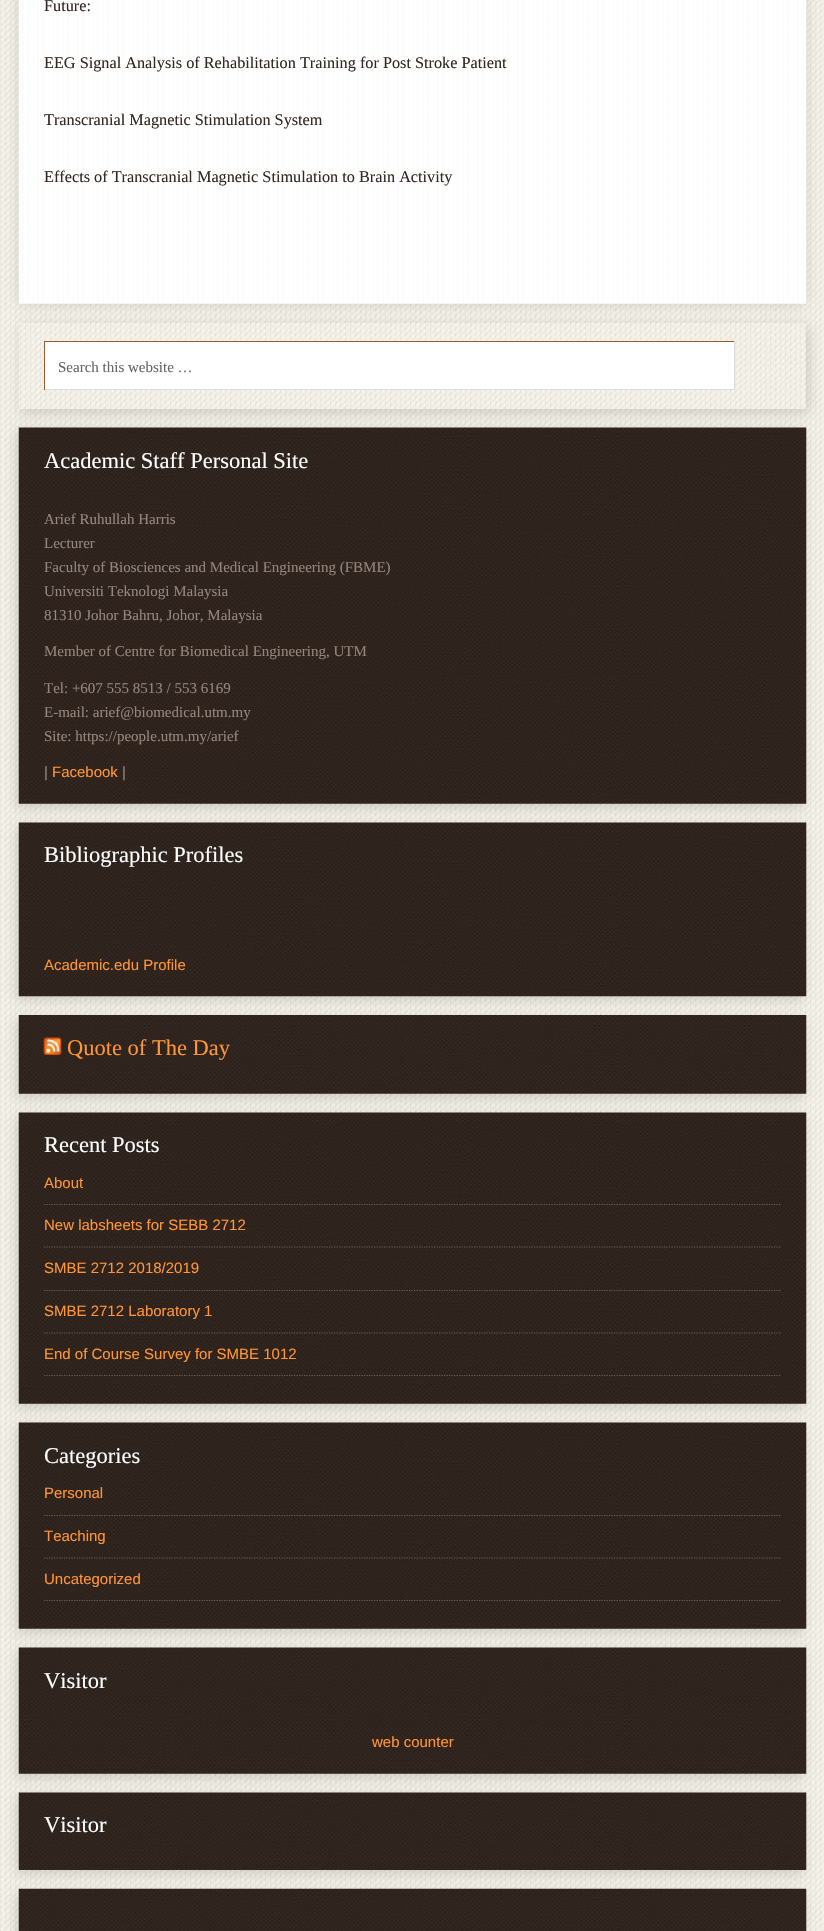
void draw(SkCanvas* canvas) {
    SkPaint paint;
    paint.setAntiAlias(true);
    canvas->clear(0xFFFFFFFF);
    canvas->drawImageRect(SkImages::DeferredFromEncodedData(SkData::MakeFromFileName("img1.png")), SkRect::MakeXYWH(0, 0, 824, 1931), SkSamplingOptions());
    paint.setColor(0x26000000);
    paint.setMaskFilter(SkMaskFilter::MakeBlur(kNormal_SkBlurStyle, 6));
    canvas->drawRect(SkRect::MakeXYWH(19, -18, 787, 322), paint);
    paint.setMaskFilter(nullptr);
    canvas->drawImageRect(SkImages::DeferredFromEncodedData(SkData::MakeFromFileName("img2.png")), SkRect::MakeXYWH(18, 0, 789, 304), SkSamplingOptions());
    SkFont font1(fontMgr->matchFamilyStyle("Liberation Serif", SkFontStyle::Normal()), 16.25f);
    font1.setSubpixel(true);
    paint.setColor(0xFF342822);
    canvas->drawString("Future:", 44, 11, font1, paint);
    canvas->drawString("EEG Signal Analysis of Rehabilitation Training for Post Stroke Patient", 44, 68, font1, paint);
    canvas->drawString("Transcranial Magnetic Stimulation System", 44, 125, font1, paint);
    canvas->drawString("Effects of Transcranial Magnetic Stimulation to Brain Activity", 44, 182, font1, paint);
    canvas->save();
    canvas->clipPath(SkPathBuilder(SkPathFillType::kEvenOdd).moveTo(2, 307).lineTo(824, 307).lineTo(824, 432).lineTo(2, 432).close().moveTo(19, 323).lineTo(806, 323).lineTo(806, 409).lineTo(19, 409).close().detach(), true);
    paint.setColor(0x26000000);
    paint.setMaskFilter(SkMaskFilter::MakeBlur(kNormal_SkBlurStyle, 6));
    canvas->drawRect(SkRect::MakeXYWH(21, 326, 788, 87), paint);
    paint.setMaskFilter(nullptr);
    canvas->restore();
    paint.setColor(0xFFFFFFFF);
    canvas->drawRect(SkRect::MakeXYWH(45, 342, 689, 47), paint);
    paint.setColor(0xFFA35833);
    canvas->drawRect(SkRect::MakeXYWH(44, 341, 691, 1), paint);
    paint.setColor(0xFFDDDDDD);
    canvas->drawRect(SkRect::MakeXYWH(734, 341, 1, 49), paint);
    canvas->drawRect(SkRect::MakeXYWH(44, 389, 691, 1), paint);
    paint.setColor(0xFFA35833);
    canvas->drawRect(SkRect::MakeXYWH(44, 341, 1, 49), paint);
    SkFont font2(fontMgr->matchFamilyStyle("Liberation Serif", SkFontStyle::Normal()), 15);
    font2.setSubpixel(true);
    paint.setColor(0xFF666666);
    canvas->drawString("Search this website …", 58, 372, font2, paint);
    paint.setColor(0x26000000);
    paint.setMaskFilter(SkMaskFilter::MakeBlur(kNormal_SkBlurStyle, 6));
    canvas->drawRect(SkRect::MakeXYWH(16, 431, 788, 377), paint);
    paint.setMaskFilter(nullptr);
    canvas->drawImageRect(SkImages::DeferredFromEncodedData(SkData::MakeFromFileName("img3.png")), SkRect::MakeXYWH(18, 427, 789, 377), SkSamplingOptions());
    SkFont font3(fontMgr->matchFamilyStyle("Liberation Serif", SkFontStyle::Normal()), 22.5f);
    font3.setSubpixel(true);
    paint.setColor(0xFFFFFFFF);
    canvas->drawString("Academic Staff Personal Site", 44, 468, font3, paint);
    paint.setColor(0xFF96867E);
    canvas->drawString("Arief Ruhullah Harris", 44, 524, font2, paint);
    canvas->drawString("Lecturer", 44, 548, font2, paint);
    canvas->drawString("Faculty of Biosciences and Medical Engineering (FBME)", 44, 572, font2, paint);
    canvas->drawString("Universiti Teknologi Malaysia", 44, 596, font2, paint);
    canvas->drawString("81310 Johor Bahru, Johor, Malaysia", 44, 620, font2, paint);
    canvas->drawString("Member of Centre for Biomedical Engineering, UTM", 44, 656, font2, paint);
    canvas->drawString("Tel: +607 555 8513 / 553 6169", 44, 693, font2, paint);
    canvas->drawString("E‐mail: arief@biomedical.utm.my", 44, 717, font2, paint);
    canvas->drawString("Site: https://people.utm.my/arief", 44, 741, font2, paint);
    SkFont font4(fontMgr->matchFamilyStyle("Liberation Sans", SkFontStyle::Normal()), 15);
    font4.setSubpixel(true);
    canvas->drawString("|", 44, 777, font4, paint);
    paint.setColor(0xFFFF9537);
    canvas->drawString("Facebook", 52, 777, font4, paint);
    paint.setColor(0xFF96867E);
    canvas->drawString("|", 122, 777, font4, paint);
    paint.setColor(0x26000000);
    paint.setMaskFilter(SkMaskFilter::MakeBlur(kNormal_SkBlurStyle, 6));
    canvas->drawRect(SkRect::MakeXYWH(16, 826, 788, 174), paint);
    paint.setMaskFilter(nullptr);
    canvas->drawImageRect(SkImages::DeferredFromEncodedData(SkData::MakeFromFileName("img4.png")), SkRect::MakeXYWH(18, 822, 789, 175), SkSamplingOptions());
    paint.setColor(0xFFFFFFFF);
    canvas->drawString("Bibliographic Profiles", 44, 862, font3, paint);
    paint.setColor(0xFFFF9537);
    canvas->drawString("Academic.edu Profile", 44, 970, font4, paint);
    paint.setColor(0x26000000);
    paint.setMaskFilter(SkMaskFilter::MakeBlur(kNormal_SkBlurStyle, 6));
    canvas->drawRect(SkRect::MakeXYWH(16, 1019, 788, 79), paint);
    paint.setMaskFilter(nullptr);
    canvas->drawImageRect(SkImages::DeferredFromEncodedData(SkData::MakeFromFileName("img5.png")), SkRect::MakeXYWH(18, 1015, 789, 79), SkSamplingOptions());
    canvas->drawImageRect(SkImages::DeferredFromEncodedData(SkData::MakeFromFileName("img6.png")), SkRect::MakeXYWH(43, 1037, 19, 18), SkSamplingOptions());
    paint.setColor(0xFFFF9537);
    canvas->drawString("Quote of The Day", 67, 1055, font3, paint);
    paint.setColor(0x26000000);
    paint.setMaskFilter(SkMaskFilter::MakeBlur(kNormal_SkBlurStyle, 6));
    canvas->drawRect(SkRect::MakeXYWH(16, 1116, 788, 292), paint);
    paint.setMaskFilter(nullptr);
    canvas->drawImageRect(SkImages::DeferredFromEncodedData(SkData::MakeFromFileName("img7.png")), SkRect::MakeXYWH(18, 1112, 789, 292), SkSamplingOptions());
    paint.setColor(0xFFFFFFFF);
    canvas->drawString("Recent Posts", 44, 1152, font3, paint);
    paint.setStyle(SkPaint::kStroke_Style);
    paint.setStrokeWidth(1.2f);
    paint.setColor(0xFF6A5D56);
    paint.setPathEffect(SkDashPathEffect::Make({{1.25f, 1.25f}}, 0));
    canvas->drawPath(SkPathBuilder().moveTo(44, 1204.5f).lineTo(781, 1204.5f).detach(), paint);
    paint.setPathEffect(nullptr);
    paint.setStyle(SkPaint::kFill_Style);
    paint.setColor(0xFFFF9537);
    canvas->drawString("About", 44, 1188, font4, paint);
    paint.setStyle(SkPaint::kStroke_Style);
    paint.setColor(0xFF6A5D56);
    paint.setPathEffect(SkDashPathEffect::Make({{1.25f, 1.25f}}, 0));
    canvas->drawPath(SkPathBuilder().moveTo(44, 1247).lineTo(781, 1247).detach(), paint);
    paint.setPathEffect(nullptr);
    paint.setStyle(SkPaint::kFill_Style);
    paint.setColor(0xFFFF9537);
    canvas->drawString("New labsheets for SEBB 2712", 44, 1230, font4, paint);
    paint.setStyle(SkPaint::kStroke_Style);
    paint.setColor(0xFF6A5D56);
    paint.setPathEffect(SkDashPathEffect::Make({{1.25f, 1.25f}}, 0));
    canvas->drawPath(SkPathBuilder().moveTo(44, 1290.5f).lineTo(781, 1290.5f).detach(), paint);
    paint.setPathEffect(nullptr);
    paint.setStyle(SkPaint::kFill_Style);
    paint.setColor(0xFFFF9537);
    canvas->drawString("SMBE 2712 2018/2019", 44, 1273, font4, paint);
    paint.setStyle(SkPaint::kStroke_Style);
    paint.setColor(0xFF6A5D56);
    paint.setPathEffect(SkDashPathEffect::Make({{1.25f, 1.25f}}, 0));
    canvas->drawPath(SkPathBuilder().moveTo(44, 1333).lineTo(781, 1333).detach(), paint);
    paint.setPathEffect(nullptr);
    paint.setStyle(SkPaint::kFill_Style);
    paint.setColor(0xFFFF9537);
    canvas->drawString("SMBE 2712 Laboratory 1", 44, 1316, font4, paint);
    paint.setStyle(SkPaint::kStroke_Style);
    paint.setColor(0xFF6A5D56);
    paint.setPathEffect(SkDashPathEffect::Make({{1.25f, 1.25f}}, 0));
    canvas->drawPath(SkPathBuilder().moveTo(44, 1375.5f).lineTo(781, 1375.5f).detach(), paint);
    paint.setPathEffect(nullptr);
    paint.setStyle(SkPaint::kFill_Style);
    paint.setColor(0xFFFF9537);
    canvas->drawString("End of Course Survey for SMBE 1012", 44, 1359, font4, paint);
    paint.setColor(0x26000000);
    paint.setMaskFilter(SkMaskFilter::MakeBlur(kNormal_SkBlurStyle, 6));
    canvas->drawRect(SkRect::MakeXYWH(16, 1426, 788, 207), paint);
    paint.setMaskFilter(nullptr);
    canvas->drawImageRect(SkImages::DeferredFromEncodedData(SkData::MakeFromFileName("img8.png")), SkRect::MakeXYWH(18, 1422, 789, 207), SkSamplingOptions());
    paint.setColor(0xFFFFFFFF);
    canvas->drawString("Categories", 44, 1463, font3, paint);
    paint.setStyle(SkPaint::kStroke_Style);
    paint.setColor(0xFF6A5D56);
    paint.setPathEffect(SkDashPathEffect::Make({{1.25f, 1.25f}}, 0));
    canvas->drawPath(SkPathBuilder().moveTo(44, 1515.5f).lineTo(781, 1515.5f).detach(), paint);
    paint.setPathEffect(nullptr);
    paint.setStyle(SkPaint::kFill_Style);
    paint.setColor(0xFFFF9537);
    canvas->drawString("Personal", 44, 1498, font4, paint);
    paint.setStyle(SkPaint::kStroke_Style);
    paint.setColor(0xFF6A5D56);
    paint.setPathEffect(SkDashPathEffect::Make({{1.25f, 1.25f}}, 0));
    canvas->drawPath(SkPathBuilder().moveTo(44, 1558).lineTo(781, 1558).detach(), paint);
    paint.setPathEffect(nullptr);
    paint.setStyle(SkPaint::kFill_Style);
    paint.setColor(0xFFFF9537);
    canvas->drawString("Teaching", 44, 1541, font4, paint);
    paint.setStyle(SkPaint::kStroke_Style);
    paint.setColor(0xFF6A5D56);
    paint.setPathEffect(SkDashPathEffect::Make({{1.25f, 1.25f}}, 0));
    canvas->drawPath(SkPathBuilder().moveTo(44, 1600.5f).lineTo(781, 1600.5f).detach(), paint);
    paint.setPathEffect(nullptr);
    paint.setStyle(SkPaint::kFill_Style);
    paint.setColor(0xFFFF9537);
    canvas->drawString("Uncategorized", 44, 1584, font4, paint);
    paint.setColor(0x26000000);
    paint.setMaskFilter(SkMaskFilter::MakeBlur(kNormal_SkBlurStyle, 6));
    canvas->drawRect(SkRect::MakeXYWH(16, 1651, 788, 127), paint);
    paint.setMaskFilter(nullptr);
    canvas->drawImageRect(SkImages::DeferredFromEncodedData(SkData::MakeFromFileName("img9.png")), SkRect::MakeXYWH(18, 1647, 789, 127), SkSamplingOptions());
    paint.setColor(0xFFFFFFFF);
    canvas->drawString("Visitor", 44, 1688, font3, paint);
    paint.setColor(0xFFFF9537);
    canvas->drawString("web counter", 372, 1747, font4, paint);
    paint.setColor(0x26000000);
    paint.setMaskFilter(SkMaskFilter::MakeBlur(kNormal_SkBlurStyle, 6));
    canvas->drawRect(SkRect::MakeXYWH(16, 1796, 788, 78), paint);
    paint.setMaskFilter(nullptr);
    canvas->drawImageRect(SkImages::DeferredFromEncodedData(SkData::MakeFromFileName("img10.png")), SkRect::MakeXYWH(18, 1792, 789, 78), SkSamplingOptions());
    paint.setColor(0xFFFFFFFF);
    canvas->drawString("Visitor", 44, 1832, font3, paint);
    paint.setColor(0x26000000);
    paint.setMaskFilter(SkMaskFilter::MakeBlur(kNormal_SkBlurStyle, 6));
    canvas->drawRect(SkRect::MakeXYWH(16, 1893, 788, 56), paint);
    paint.setMaskFilter(nullptr);
    canvas->drawImageRect(SkImages::DeferredFromEncodedData(SkData::MakeFromFileName("img11.png")), SkRect::MakeXYWH(18, 1888, 789, 43), SkSamplingOptions());
}
